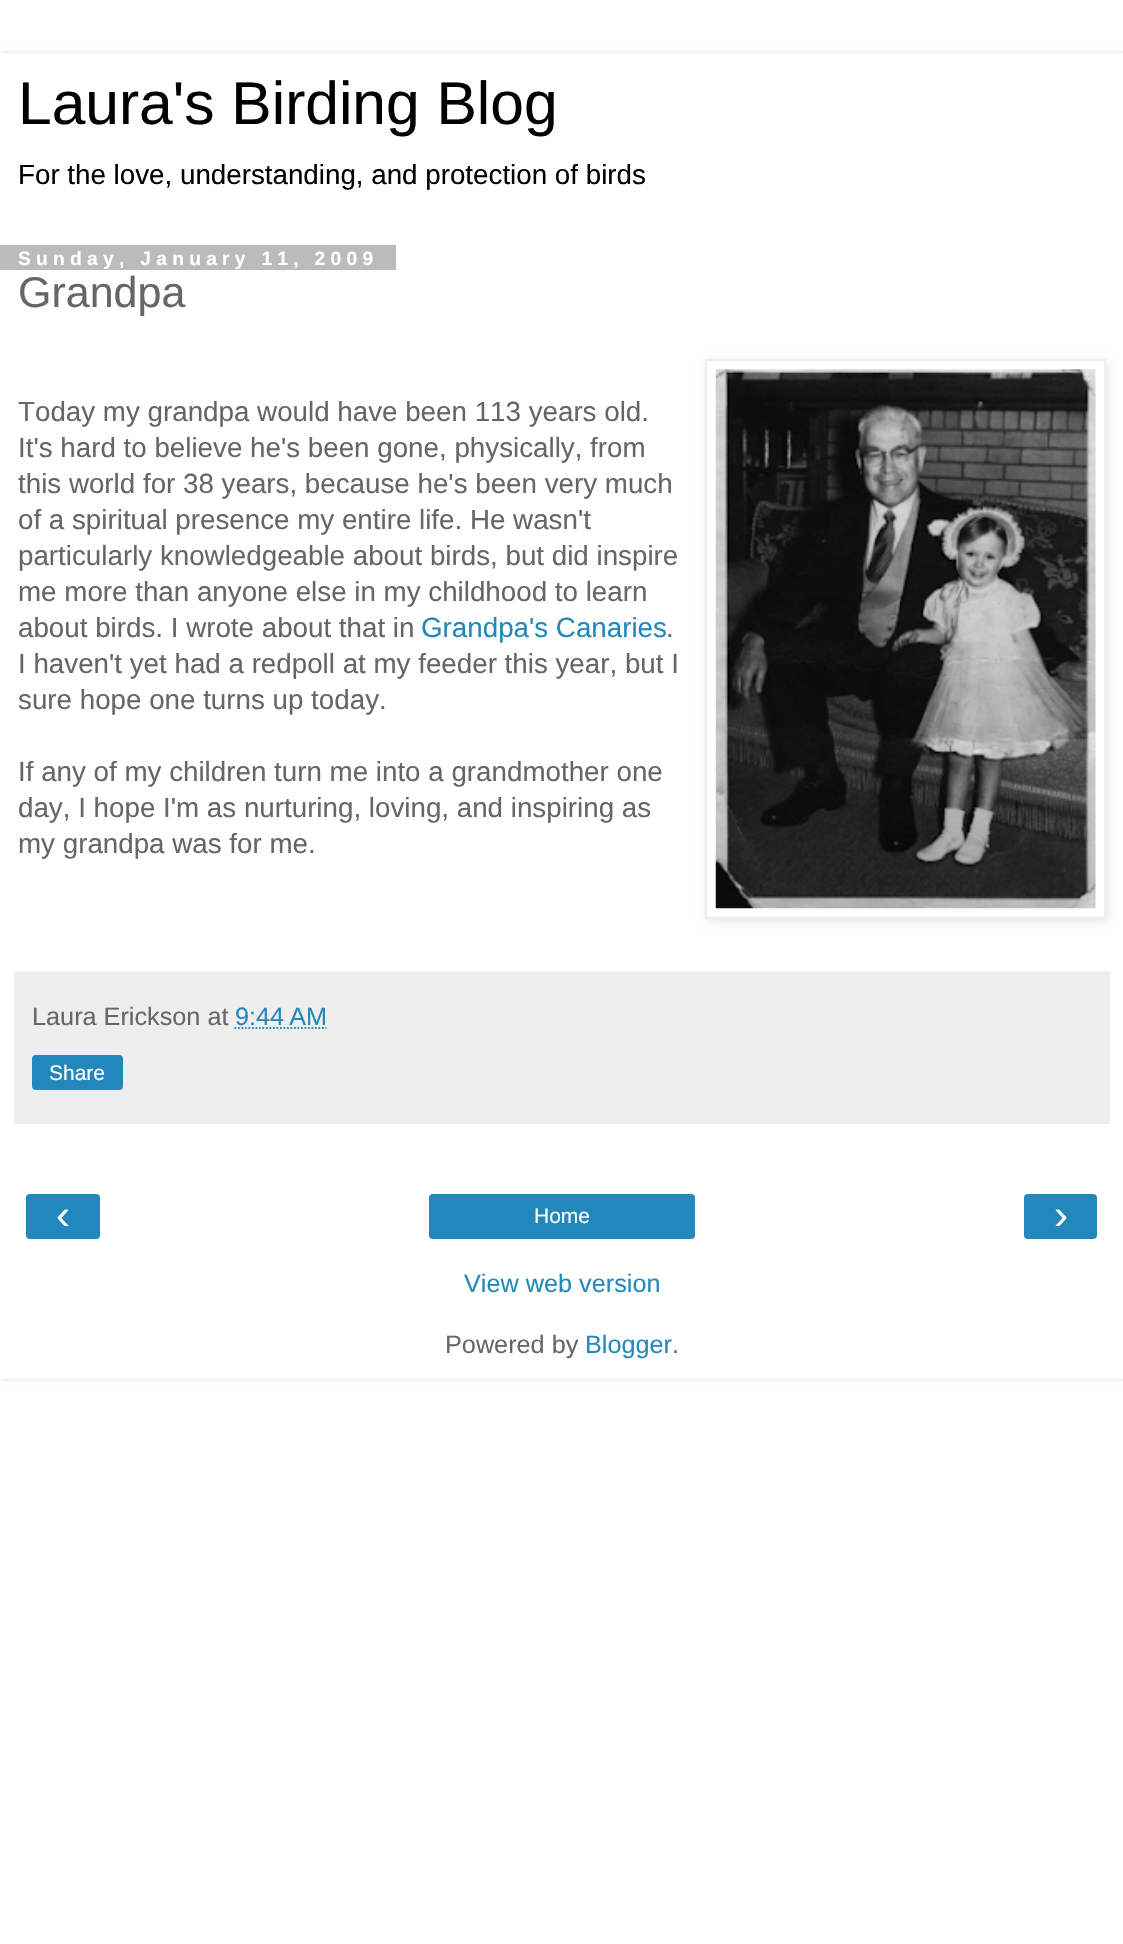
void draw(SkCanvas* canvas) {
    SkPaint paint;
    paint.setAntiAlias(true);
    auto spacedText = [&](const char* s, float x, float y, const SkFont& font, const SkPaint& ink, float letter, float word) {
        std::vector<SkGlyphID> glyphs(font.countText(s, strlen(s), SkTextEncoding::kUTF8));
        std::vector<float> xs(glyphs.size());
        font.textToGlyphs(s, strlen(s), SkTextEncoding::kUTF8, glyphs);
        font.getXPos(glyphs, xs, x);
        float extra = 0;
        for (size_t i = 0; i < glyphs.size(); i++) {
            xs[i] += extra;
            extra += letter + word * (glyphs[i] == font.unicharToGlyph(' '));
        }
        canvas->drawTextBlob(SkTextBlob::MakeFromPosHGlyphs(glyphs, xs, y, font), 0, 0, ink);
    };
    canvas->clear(0xFFFFFFFF);
    canvas->save();
    canvas->clipPath(SkPathBuilder(SkPathFillType::kEvenOdd).moveTo(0, 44).lineTo(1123, 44).lineTo(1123, 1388).lineTo(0, 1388).close().moveTo(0, 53).lineTo(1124, 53).lineTo(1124, 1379).lineTo(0, 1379).close().detach(), true);
    paint.setColor(0x26000000);
    paint.setMaskFilter(SkMaskFilter::MakeBlur(kNormal_SkBlurStyle, 2.5f));
    canvas->drawRect(SkRect::MakeXYWH(0, 53, 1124, 1326), paint);
    paint.setMaskFilter(nullptr);
    canvas->restore();
    SkFont font1(fontMgr->matchFamilyStyle("Liberation Sans", SkFontStyle::Normal()), 60.5f);
    font1.setSubpixel(true);
    paint.setColor(0xFF000000);
    canvas->drawString("Laura's Birding Blog", 18, 124, font1, paint);
    SkFont font2(fontMgr->matchFamilyStyle("Liberation Sans", SkFontStyle::Normal()), 27.75f);
    font2.setSubpixel(true);
    canvas->drawString("For the love, understanding, and protection of birds", 18, 184, font2, paint);
    paint.setColor(0xFFBBBBBB);
    canvas->drawRect(SkRect::MakeXYWH(0, 245, 396, 25), paint);
    SkFont font3(fontMgr->matchFamilyStyle("Liberation Sans", SkFontStyle::Bold()), 19.25f);
    font3.setSubpixel(true);
    paint.setColor(0xFFFFFFFF);
    spacedText("Sunday, January 11, 2009", 18, 265, font3, paint, 5.25f, 0);
    SkFont font4(fontMgr->matchFamilyStyle("Liberation Sans", SkFontStyle::Normal()), 43);
    font4.setSubpixel(true);
    paint.setColor(0xFF666666);
    canvas->drawString("Grandpa", 18, 307, font4, paint);
    canvas->drawString("Today my grandpa would have been 113 years old.", 18, 421, font2, paint);
    paint.setColor(0x1A000000);
    paint.setMaskFilter(SkMaskFilter::MakeBlur(kNormal_SkBlurStyle, 4.5f));
    canvas->drawRect(SkRect::MakeXYWH(707, 361, 401, 560), paint);
    paint.setMaskFilter(nullptr);
    paint.setColor(0xFFFFFFFF);
    canvas->drawRect(SkRect::MakeXYWH(706, 360, 399, 558), paint);
    paint.setStyle(SkPaint::kStroke_Style);
    paint.setStrokeWidth(2);
    paint.setColor(0xFFEEEEEE);
    canvas->drawRect(SkRect::MakeXYWH(706, 360, 399, 558), paint);
    canvas->drawImageRect(SkImages::DeferredFromEncodedData(SkData::MakeFromFileName("img1.png")), SkRect::MakeXYWH(715, 369, 381, 540), SkSamplingOptions());
    paint.setStyle(SkPaint::kFill_Style);
    paint.setColor(0xFF666666);
    canvas->drawString("It's hard to believe he's been gone, physically, from", 18, 457, font2, paint);
    canvas->drawString("this world for 38 years, because he's been very much", 18, 493, font2, paint);
    canvas->drawString("of a spiritual presence my entire life. He wasn't", 18, 529, font2, paint);
    canvas->drawString("particularly knowledgeable about birds, but did inspire", 18, 565, font2, paint);
    canvas->drawString("me more than anyone else in my childhood to learn", 18, 601, font2, paint);
    canvas->drawString("about birds. I wrote about that in", 18, 637, font2, paint);
    paint.setColor(0xFF2288BB);
    canvas->drawString("Grandpa's Canaries", 421, 637, font2, paint);
    paint.setColor(0xFF666666);
    canvas->drawString(".", 666, 637, font2, paint);
    canvas->drawString("I haven't yet had a redpoll at my feeder this year, but I", 18, 673, font2, paint);
    canvas->drawString("sure hope one turns up today.", 18, 709, font2, paint);
    canvas->drawString("If any of my children turn me into a grandmother one", 18, 781, font2, paint);
    canvas->drawString("day, I hope I'm as nurturing, loving, and inspiring as", 18, 817, font2, paint);
    canvas->drawString("my grandpa was for me.", 18, 853, font2, paint);
    paint.setColor(0xFFEEEEEE);
    canvas->drawRect(SkRect::MakeXYWH(14, 971, 1096, 153), paint);
    SkFont font5(fontMgr->matchFamilyStyle("Liberation Sans", SkFontStyle::Normal()), 25.25f);
    font5.setSubpixel(true);
    paint.setColor(0xFF666666);
    canvas->drawString("Laura Erickson at", 32, 1025, font5, paint);
    paint.setColor(0xFF2288BB);
    canvas->drawString("9:44 AM", 235, 1025, font5, paint);
    paint.setStyle(SkPaint::kStroke_Style);
    paint.setStrokeWidth(1.8f);
    paint.setPathEffect(SkDashPathEffect::Make({{1.75f, 1.75f}}, 0));
    canvas->drawPath(SkPathBuilder().moveTo(234.5f, 1028).lineTo(326.5f, 1028).detach(), paint);
    paint.setPathEffect(nullptr);
    paint.setStyle(SkPaint::kFill_Style);
    canvas->drawRoundRect(SkRect::MakeXYWH(32, 1055, 91, 35), 4, 4, paint);
    SkFont font6(fontMgr->matchFamilyStyle("Liberation Sans", SkFontStyle::Normal()), 21);
    font6.setSubpixel(true);
    paint.setColor(0xFFFFFFFF);
    canvas->drawString("Share", 49, 1080, font6, paint);
    paint.setColor(0xFF2288BB);
    canvas->drawRoundRect(SkRect::MakeXYWH(26, 1194, 74, 45), 4, 4, paint);
    SkFont font7(fontMgr->matchFamilyStyle("Liberation Sans", SkFontStyle::Normal()), 42);
    font7.setSubpixel(true);
    paint.setColor(0xFFFFFFFF);
    canvas->drawString("‹", 56, 1229, font7, paint);
    paint.setColor(0xFF2288BB);
    canvas->drawRoundRect(SkRect::MakeXYWH(429, 1194, 266, 45), 4, 4, paint);
    paint.setColor(0xFFFFFFFF);
    canvas->drawString("Home", 534, 1223, font6, paint);
    paint.setColor(0xFF2288BB);
    canvas->drawRoundRect(SkRect::MakeXYWH(1024, 1194, 73, 45), 4, 4, paint);
    paint.setColor(0xFFFFFFFF);
    canvas->drawString("›", 1054, 1229, font7, paint);
    paint.setColor(0xFF2288BB);
    canvas->drawString("View web version", 464, 1292, font5, paint);
    paint.setColor(0xFF666666);
    canvas->drawString("Powered by", 445, 1353, font5, paint);
    paint.setColor(0xFF2288BB);
    canvas->drawString("Blogger", 585, 1353, font5, paint);
    paint.setColor(0xFF666666);
    canvas->drawString(".", 672, 1353, font5, paint);
}
